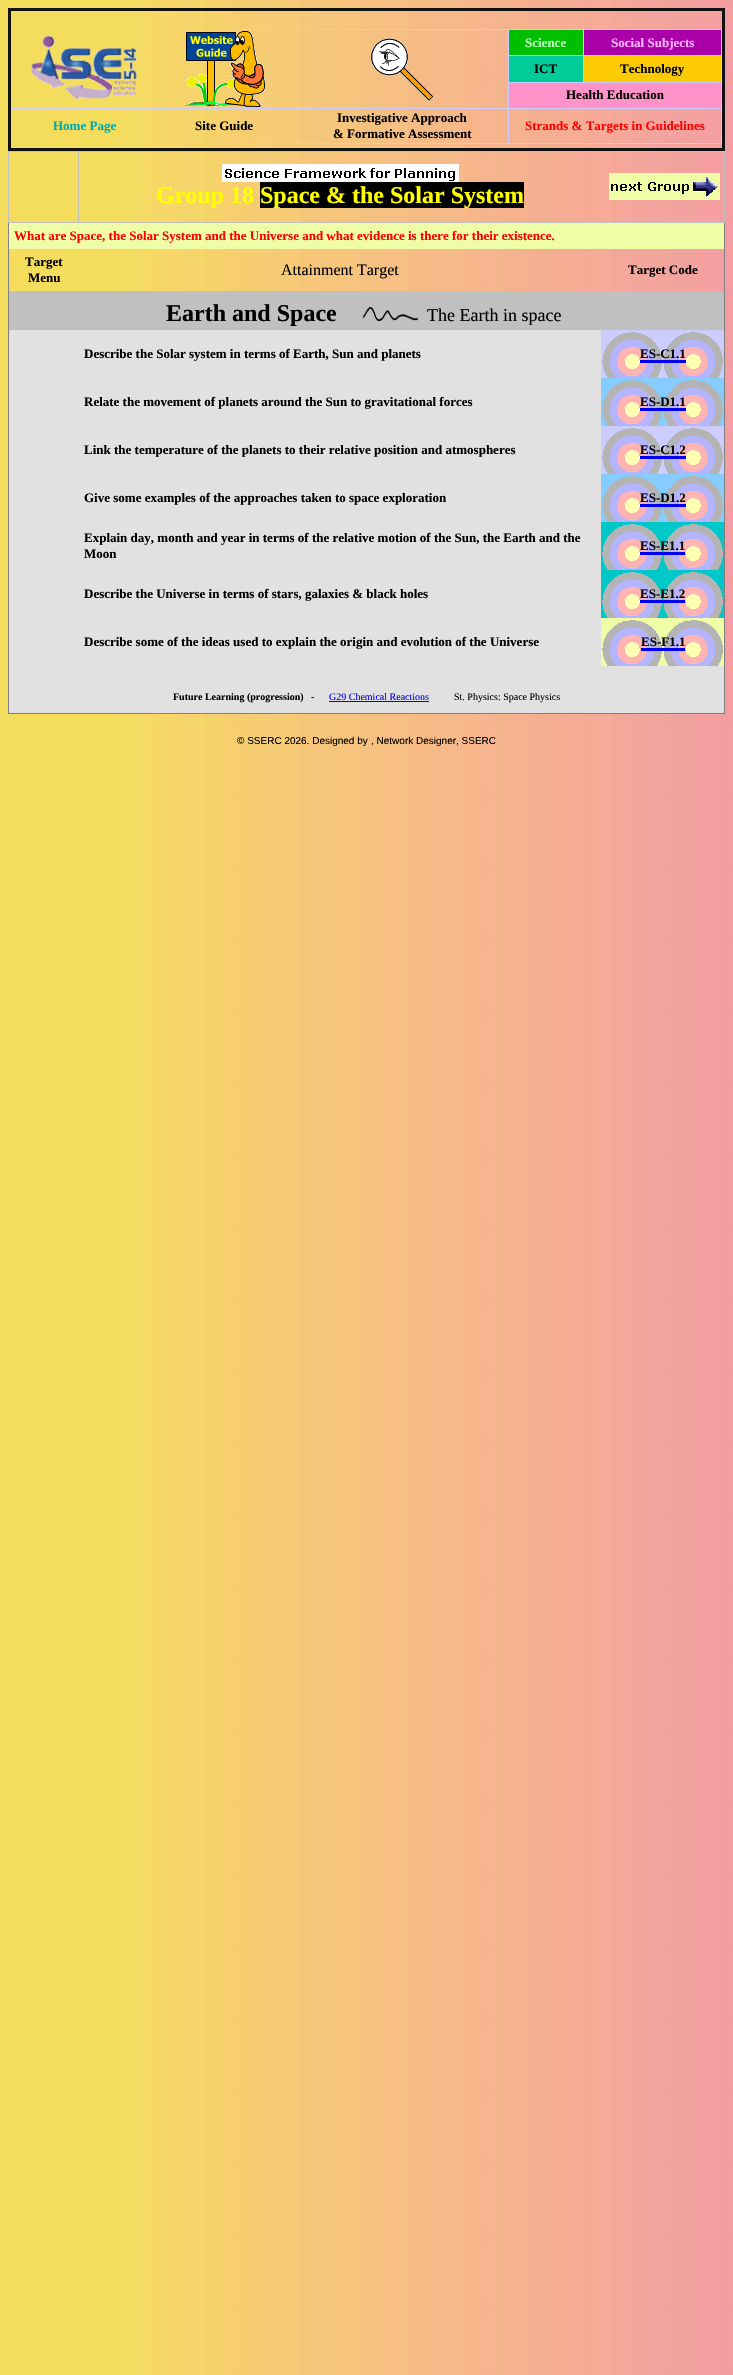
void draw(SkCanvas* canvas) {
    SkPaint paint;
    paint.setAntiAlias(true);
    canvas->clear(0xFFFFFFFF);
    canvas->drawImageRect(SkImages::DeferredFromEncodedData(SkData::MakeFromFileName("img1.png")), SkRect::MakeXYWH(0, 0, 733, 2375), SkSamplingOptions());
    paint.setColor(0xFF111111);
    canvas->drawRect(SkRect::MakeXYWH(8, 8, 717, 3), paint);
    canvas->drawRect(SkRect::MakeXYWH(722, 8, 3, 143), paint);
    canvas->drawRect(SkRect::MakeXYWH(8, 148, 717, 3), paint);
    canvas->drawRect(SkRect::MakeXYWH(8, 8, 3, 143), paint);
    canvas->drawImageRect(SkImages::DeferredFromEncodedData(SkData::MakeFromFileName("img2.png")), SkRect::MakeXYWH(153, 30, 356, 113), SkSamplingOptions());
    paint.setColor(0xFFCCCCFF);
    canvas->drawRect(SkRect::MakeXYWH(583, 29, 139, 1), paint);
    canvas->drawRect(SkRect::MakeXYWH(583, 55, 139, 1), paint);
    canvas->drawRect(SkRect::MakeXYWH(508, 82, 214, 1), paint);
    canvas->drawRect(SkRect::MakeXYWH(583, 55, 1, 28), paint);
    canvas->drawRect(SkRect::MakeXYWH(508, 55, 76, 1), paint);
    canvas->drawRect(SkRect::MakeXYWH(583, 29, 1, 27), paint);
    canvas->drawRect(SkRect::MakeXYWH(11, 29, 573, 1), paint);
    canvas->drawRect(SkRect::MakeXYWH(11, 108, 143, 1), paint);
    canvas->drawRect(SkRect::MakeXYWH(508, 108, 214, 1), paint);
    canvas->drawRect(SkRect::MakeXYWH(721, 108, 1, 36), paint);
    canvas->drawRect(SkRect::MakeXYWH(11, 143, 711, 1), paint);
    canvas->drawRect(SkRect::MakeXYWH(11, 108, 1, 36), paint);
    canvas->drawRect(SkRect::MakeXYWH(11, 29, 1, 80), paint);
    canvas->drawImageRect(SkImages::DeferredFromEncodedData(SkData::MakeFromFileName("img3.png")), SkRect::MakeXYWH(31, 35, 106, 65), SkSamplingOptions());
    canvas->drawImageRect(SkImages::DeferredFromEncodedData(SkData::MakeFromFileName("img4.png")), SkRect::MakeXYWH(185, 31, 80, 76), SkSamplingOptions());
    canvas->drawImageRect(SkImages::DeferredFromEncodedData(SkData::MakeFromFileName("img5.png")), SkRect::MakeXYWH(371, 38, 63, 63), SkSamplingOptions());
    paint.setColor(0xFF00BF00);
    canvas->drawRect(SkRect::MakeXYWH(509, 30, 74, 25), paint);
    SkFont font1(fontMgr->matchFamilyStyle("Liberation Serif", SkFontStyle::Bold()), 13);
    font1.setSubpixel(true);
    paint.setColor(0xFFBFFFBF);
    canvas->drawString("Science", 525, 47, font1, paint);
    paint.setColor(0xFFAA00AA);
    canvas->drawRect(SkRect::MakeXYWH(584, 30, 137, 25), paint);
    paint.setColor(0xFFCCCCFF);
    canvas->drawRect(SkRect::MakeXYWH(721, 82, 1, 27), paint);
    canvas->drawRect(SkRect::MakeXYWH(721, 55, 1, 28), paint);
    canvas->drawRect(SkRect::MakeXYWH(721, 29, 1, 27), paint);
    paint.setColor(0xFFFFB5FF);
    canvas->drawString("Social Subjects", 611, 47, font1, paint);
    paint.setColor(0xFF00CC99);
    canvas->drawRect(SkRect::MakeXYWH(509, 56, 74, 26), paint);
    paint.setColor(0xFF000000);
    canvas->drawString("ICT", 534, 73, font1, paint);
    paint.setColor(0xFFFCCA03);
    canvas->drawRect(SkRect::MakeXYWH(584, 56, 137, 26), paint);
    paint.setColor(0xFF000000);
    canvas->drawString("Technology", 620, 73, font1, paint);
    paint.setColor(0xFFFF93C9);
    canvas->drawRect(SkRect::MakeXYWH(509, 83, 212, 25), paint);
    paint.setColor(0xFF000000);
    canvas->drawString("Health Education", 566, 99, font1, paint);
    paint.setColor(0xFF00A8A8);
    canvas->drawString("Home Page", 53, 130, font1, paint);
    paint.setColor(0xFF000000);
    canvas->drawString("Site Guide", 195, 130, font1, paint);
    canvas->drawString("Investigative Approach", 337, 122, font1, paint);
    canvas->drawString("& Formative Assessment", 333, 138, font1, paint);
    paint.setColor(0xFFFF0000);
    canvas->drawString("Strands & Targets in Guidelines", 525, 130, font1, paint);
    canvas->drawImageRect(SkImages::DeferredFromEncodedData(SkData::MakeFromFileName("img6.png")), SkRect::MakeXYWH(78, 152, 524, 70), SkSamplingOptions());
    paint.setColor(0xFF808080);
    canvas->drawRect(SkRect::MakeXYWH(724, 223, 1, 491), paint);
    canvas->drawRect(SkRect::MakeXYWH(8, 713, 717, 1), paint);
    canvas->drawRect(SkRect::MakeXYWH(8, 223, 1, 491), paint);
    paint.setColor(0xFFC0C0C0);
    canvas->drawRect(SkRect::MakeXYWH(8, 151, 717, 1), paint);
    canvas->drawRect(SkRect::MakeXYWH(724, 151, 1, 72), paint);
    canvas->drawRect(SkRect::MakeXYWH(8, 222, 717, 1), paint);
    canvas->drawImageRect(SkImages::DeferredFromEncodedData(SkData::MakeFromFileName("img7.png")), SkRect::MakeXYWH(609, 173, 111, 27), SkSamplingOptions());
    canvas->drawRect(SkRect::MakeXYWH(8, 151, 1, 72), paint);
    canvas->drawImageRect(SkImages::DeferredFromEncodedData(SkData::MakeFromFileName("img8.png")), SkRect::MakeXYWH(222, 164, 237, 18), SkSamplingOptions());
    SkFont font2(fontMgr->matchFamilyStyle("Liberation Serif", SkFontStyle::Bold()), 24);
    font2.setSubpixel(true);
    paint.setColor(0xFFFFFF00);
    canvas->drawString("Group 18", 156, 203, font2, paint);
    paint.setColor(0xFF000000);
    canvas->drawRect(SkRect::MakeXYWH(260, 182, 264, 26), paint);
    paint.setColor(0xFFFFFF00);
    canvas->drawString("Space & the Solar System", 260, 203, font2, paint);
    paint.setColor(0xFFEEFDA6);
    canvas->drawRect(SkRect::MakeXYWH(9, 223, 715, 26), paint);
    paint.setColor(0xFFFF0000);
    canvas->drawString("What are Space, the Solar System and the Universe and what evidence is there for their existence.", 14, 240, font1, paint);
    paint.setColor(0xFF000000);
    canvas->drawString("Target", 25, 266, font1, paint);
    canvas->drawString("Menu", 28, 282, font1, paint);
    SkFont font3(fontMgr->matchFamilyStyle("Liberation Serif", SkFontStyle::Normal()), 16);
    font3.setSubpixel(true);
    canvas->drawString("Attainment Target", 281, 275, font3, paint);
    canvas->drawString("Target Code", 628, 274, font1, paint);
    paint.setColor(0xFFC0C0C0);
    canvas->drawRect(SkRect::MakeXYWH(9, 291, 715, 39), paint);
    paint.setColor(0xFF000000);
    canvas->drawString("Earth and Space", 166, 321, font2, paint);
    canvas->drawImageRect(SkImages::DeferredFromEncodedData(SkData::MakeFromFileName("img9.png")), SkRect::MakeXYWH(363, 307, 55, 14), SkSamplingOptions());
    SkFont font4(fontMgr->matchFamilyStyle("Liberation Serif", SkFontStyle::Normal()), 18);
    font4.setSubpixel(true);
    canvas->drawString("The Earth in space", 427, 321, font4, paint);
    paint.setColor(0xFFE1E1E1);
    canvas->drawRect(SkRect::MakeXYWH(9, 330, 592, 48), paint);
    paint.setColor(0xFF000000);
    canvas->drawString("Describe the Solar system in terms of Earth, Sun and planets", 84, 358, font1, paint);
    paint.setColor(0xFFCCCCFF);
    canvas->drawRect(SkRect::MakeXYWH(601, 330, 123, 48), paint);
    canvas->drawImageRect(SkImages::DeferredFromEncodedData(SkData::MakeFromFileName("img10.png")), SkRect::MakeXYWH(602, 332, 121, 46), SkSamplingOptions());
    paint.setColor(0xFF000000);
    canvas->drawString("ES-C1.1", 640, 358, font1, paint);
    paint.setColor(0xFF0000EE);
    canvas->drawRect(SkRect::MakeXYWH(640, 360, 46, 3), paint);
    paint.setColor(0xFFE1E1E1);
    canvas->drawRect(SkRect::MakeXYWH(9, 378, 592, 48), paint);
    paint.setColor(0xFF000000);
    canvas->drawString("Relate the movement of planets around the Sun to gravitational forces", 84, 406, font1, paint);
    paint.setColor(0xFF86CCFF);
    canvas->drawRect(SkRect::MakeXYWH(601, 378, 123, 48), paint);
    canvas->drawImageRect(SkImages::DeferredFromEncodedData(SkData::MakeFromFileName("img11.png")), SkRect::MakeXYWH(602, 380, 121, 46), SkSamplingOptions());
    paint.setColor(0xFF000000);
    canvas->drawString("ES-D1.1", 640, 406, font1, paint);
    paint.setColor(0xFF0000EE);
    canvas->drawRect(SkRect::MakeXYWH(640, 408, 46, 3), paint);
    paint.setColor(0xFFE1E1E1);
    canvas->drawRect(SkRect::MakeXYWH(9, 426, 592, 48), paint);
    paint.setColor(0xFF000000);
    canvas->drawString("Link the temperature of the planets to their relative position and atmospheres", 84, 454, font1, paint);
    paint.setColor(0xFFCCCCFF);
    canvas->drawRect(SkRect::MakeXYWH(601, 426, 123, 48), paint);
    canvas->drawImageRect(SkImages::DeferredFromEncodedData(SkData::MakeFromFileName("img10.png")), SkRect::MakeXYWH(602, 428, 121, 46), SkSamplingOptions());
    paint.setColor(0xFF000000);
    canvas->drawString("ES-C1.2", 640, 454, font1, paint);
    paint.setColor(0xFF0000EE);
    canvas->drawRect(SkRect::MakeXYWH(640, 456, 46, 3), paint);
    paint.setColor(0xFFE1E1E1);
    canvas->drawRect(SkRect::MakeXYWH(9, 474, 592, 48), paint);
    paint.setColor(0xFF000000);
    canvas->drawString("Give some examples of the approaches taken to space exploration", 84, 502, font1, paint);
    paint.setColor(0xFF86CCFF);
    canvas->drawRect(SkRect::MakeXYWH(601, 474, 123, 48), paint);
    canvas->drawImageRect(SkImages::DeferredFromEncodedData(SkData::MakeFromFileName("img11.png")), SkRect::MakeXYWH(602, 476, 121, 46), SkSamplingOptions());
    paint.setColor(0xFF000000);
    canvas->drawString("ES-D1.2", 640, 502, font1, paint);
    paint.setColor(0xFF0000EE);
    canvas->drawRect(SkRect::MakeXYWH(640, 504, 46, 3), paint);
    paint.setColor(0xFFE1E1E1);
    canvas->drawRect(SkRect::MakeXYWH(9, 522, 592, 48), paint);
    paint.setColor(0xFF000000);
    canvas->drawString("Explain day, month and year in terms of the relative motion of the Sun, the Earth and the", 84, 542, font1, paint);
    canvas->drawString("Moon", 84, 558, font1, paint);
    paint.setColor(0xFF00C8C8);
    canvas->drawRect(SkRect::MakeXYWH(601, 522, 123, 96), paint);
    canvas->drawImageRect(SkImages::DeferredFromEncodedData(SkData::MakeFromFileName("img12.png")), SkRect::MakeXYWH(602, 524, 121, 46), SkSamplingOptions());
    paint.setColor(0xFF000000);
    canvas->drawString("ES-E1.1", 640, 550, font1, paint);
    paint.setColor(0xFF0000EE);
    canvas->drawRect(SkRect::MakeXYWH(640, 552, 45, 3), paint);
    paint.setColor(0xFFE1E1E1);
    canvas->drawRect(SkRect::MakeXYWH(9, 570, 592, 48), paint);
    paint.setColor(0xFF000000);
    canvas->drawString("Describe the Universe in terms of stars, galaxies & black holes", 84, 598, font1, paint);
    canvas->drawImageRect(SkImages::DeferredFromEncodedData(SkData::MakeFromFileName("img12.png")), SkRect::MakeXYWH(602, 572, 121, 46), SkSamplingOptions());
    canvas->drawString("ES-E1.2", 640, 598, font1, paint);
    paint.setColor(0xFF0000EE);
    canvas->drawRect(SkRect::MakeXYWH(640, 600, 45, 3), paint);
    paint.setColor(0xFFE1E1E1);
    canvas->drawRect(SkRect::MakeXYWH(9, 618, 592, 48), paint);
    paint.setColor(0xFF000000);
    canvas->drawString("Describe some of the ideas used to explain the origin and evolution of the Universe", 84, 646, font1, paint);
    paint.setColor(0xFFEEFDA6);
    canvas->drawRect(SkRect::MakeXYWH(601, 618, 123, 48), paint);
    canvas->drawImageRect(SkImages::DeferredFromEncodedData(SkData::MakeFromFileName("img13.png")), SkRect::MakeXYWH(602, 620, 121, 46), SkSamplingOptions());
    paint.setColor(0xFF000000);
    canvas->drawString("ES-F1.1", 641, 646, font1, paint);
    paint.setColor(0xFF0000EE);
    canvas->drawRect(SkRect::MakeXYWH(641, 648, 44, 3), paint);
    paint.setColor(0xFFE1E1E1);
    canvas->drawRect(SkRect::MakeXYWH(9, 666, 715, 47), paint);
    SkFont font5(fontMgr->matchFamilyStyle("Liberation Serif", SkFontStyle::Bold()), 10);
    font5.setSubpixel(true);
    paint.setColor(0xFF000000);
    canvas->drawString("Future Learning (progression)", 173, 700, font5, paint);
    canvas->drawString("-", 311, 700, font5, paint);
    SkFont font6(fontMgr->matchFamilyStyle("Liberation Serif", SkFontStyle::Normal()), 10);
    font6.setSubpixel(true);
    paint.setColor(0xFF0000EE);
    canvas->drawString("G29 Chemical Reactions", 329, 700, font6, paint);
    canvas->drawRect(SkRect::MakeXYWH(329, 701, 100, 1), paint);
    paint.setColor(0xFF000000);
    canvas->drawString("St. Physics: Space Physics", 454, 700, font6, paint);
    SkFont font7(fontMgr->matchFamilyStyle("Liberation Sans", SkFontStyle::Normal()), 10);
    font7.setSubpixel(true);
    canvas->drawString("© SSERC 2026. Designed by", 237, 744, font7, paint);
    canvas->drawString(", Network Designer, SSERC", 371, 744, font7, paint);
}
